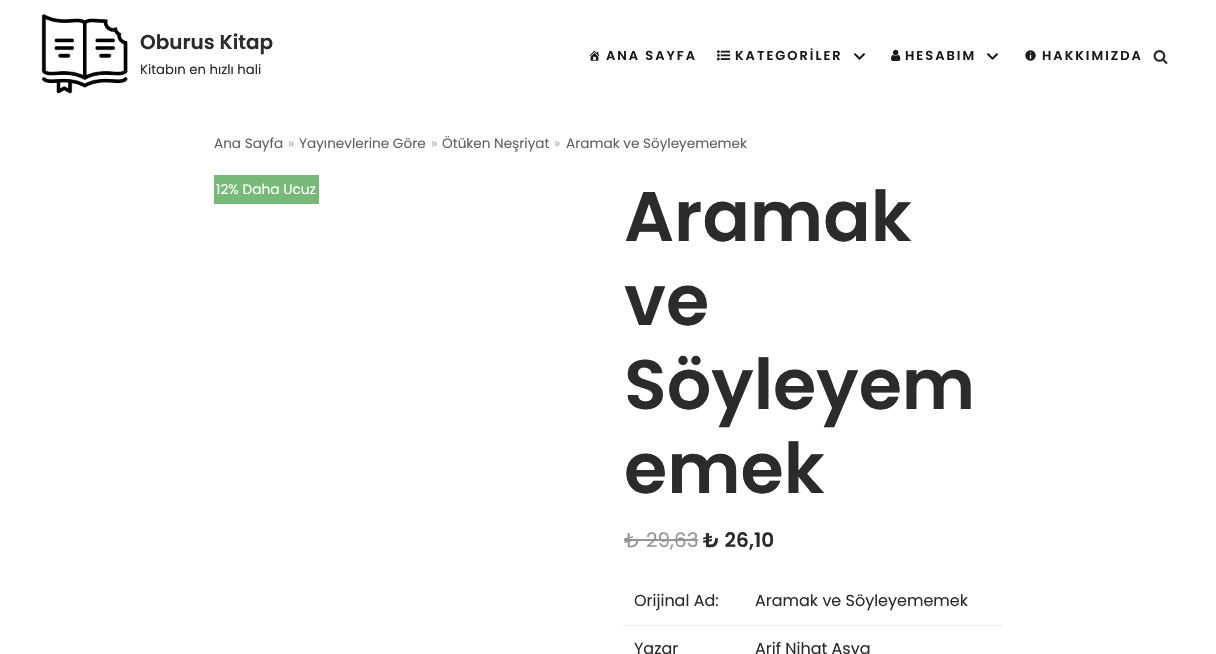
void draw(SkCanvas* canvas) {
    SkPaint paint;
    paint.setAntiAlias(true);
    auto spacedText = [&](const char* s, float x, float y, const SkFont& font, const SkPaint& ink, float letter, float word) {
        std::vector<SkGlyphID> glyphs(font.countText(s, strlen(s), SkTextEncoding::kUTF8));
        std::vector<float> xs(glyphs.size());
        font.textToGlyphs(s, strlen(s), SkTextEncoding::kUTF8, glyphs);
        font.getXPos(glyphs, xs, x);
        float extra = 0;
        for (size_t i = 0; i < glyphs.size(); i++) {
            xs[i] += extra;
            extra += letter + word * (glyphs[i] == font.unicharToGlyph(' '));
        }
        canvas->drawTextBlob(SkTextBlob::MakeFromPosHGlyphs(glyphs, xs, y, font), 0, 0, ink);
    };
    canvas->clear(0xFFFFFFFF);
    canvas->drawImageRect(SkImages::DeferredFromEncodedData(SkData::MakeFromFileName("img1.png")), SkRect::MakeXYWH(41, 14, 87, 80), SkSamplingOptions());
    SkFont font1(fontMgr->matchFamilyStyle("Poppins", SkFontStyle(600, SkFontStyle::kNormal_Width, SkFontStyle::kUpright_Slant)), 20);
    font1.setSubpixel(true);
    paint.setColor(0xFF2B2B2B);
    canvas->drawString("Oburus Kitap", 140, 49, font1, paint);
    SkFont font2(fontMgr->matchFamilyStyle("Poppins", SkFontStyle::Normal()), 13.25f);
    font2.setSubpixel(true);
    canvas->drawString("Kitabın en hızlı hali", 140, 74, font2, paint);
    canvas->drawImageRect(SkImages::DeferredFromEncodedData(SkData::MakeFromFileName("img2.png")), SkRect::MakeXYWH(589, 50, 11, 11), SkSamplingOptions());
    SkFont font3(fontMgr->matchFamilyStyle("Poppins", SkFontStyle(600, SkFontStyle::kNormal_Width, SkFontStyle::kUpright_Slant)), 13);
    font3.setSubpixel(true);
    paint.setColor(0xFF18191D);
    spacedText("ANA SAYFA", 606, 60, font3, paint, 2, 0);
    canvas->drawImageRect(SkImages::DeferredFromEncodedData(SkData::MakeFromFileName("img3.png")), SkRect::MakeXYWH(717, 50, 13, 11), SkSamplingOptions());
    spacedText("KATEGORİLER", 735, 60, font3, paint, 2, 0);
    canvas->drawImageRect(SkImages::DeferredFromEncodedData(SkData::MakeFromFileName("img4.png")), SkRect::MakeXYWH(854, 53, 11, 7), SkSamplingOptions());
    canvas->drawImageRect(SkImages::DeferredFromEncodedData(SkData::MakeFromFileName("img5.png")), SkRect::MakeXYWH(891, 49, 10, 12), SkSamplingOptions());
    spacedText("HESABIM", 905, 60, font3, paint, 2, 0);
    canvas->drawImageRect(SkImages::DeferredFromEncodedData(SkData::MakeFromFileName("img4.png")), SkRect::MakeXYWH(987, 53, 11, 7), SkSamplingOptions());
    canvas->drawImageRect(SkImages::DeferredFromEncodedData(SkData::MakeFromFileName("img6.png")), SkRect::MakeXYWH(1025, 50, 11, 11), SkSamplingOptions());
    spacedText("HAKKIMIZDA", 1042, 60, font3, paint, 2, 0);
    canvas->drawImageRect(SkImages::DeferredFromEncodedData(SkData::MakeFromFileName("img7.png")), SkRect::MakeXYWH(1153, 50, 15, 14), SkSamplingOptions());
    SkFont font4(fontMgr->matchFamilyStyle("Poppins", SkFontStyle::Normal()), 13.6f);
    font4.setSubpixel(true);
    paint.setColor(0xFF606060);
    canvas->drawString("Ana Sayfa", 214, 148, font4, paint);
    paint.setColor(0xFFB0B0B0);
    canvas->drawString("»", 288, 148, font4, paint);
    paint.setColor(0xFF606060);
    canvas->drawString("Yayınevlerine Göre", 299, 148, font4, paint);
    paint.setColor(0xFFB0B0B0);
    canvas->drawString("»", 431, 148, font4, paint);
    paint.setColor(0xFF606060);
    canvas->drawString("Ötüken Neşriyat", 442, 148, font4, paint);
    paint.setColor(0xFFB0B0B0);
    canvas->drawString("»", 554, 148, font4, paint);
    paint.setColor(0xFF606060);
    canvas->drawString("Aramak ve Söyleyememek", 566, 148, font4, paint);
    paint.setColor(0xFF77B978);
    canvas->drawRect(SkRect::MakeXYWH(214, 175, 105, 29), paint);
    SkFont font5(fontMgr->matchFamilyStyle("Poppins", SkFontStyle::Normal()), 13.75f);
    font5.setSubpixel(true);
    paint.setColor(0xFFFFFFFF);
    canvas->drawString("12% Daha Ucuz", 216, 194, font5, paint);
    SkFont font6(fontMgr->matchFamilyStyle("Poppins", SkFontStyle(600, SkFontStyle::kNormal_Width, SkFontStyle::kUpright_Slant)), 70);
    font6.setSubpixel(true);
    paint.setColor(0xFF2B2B2B);
    canvas->drawString("Aramak", 624, 241, font6, paint);
    canvas->drawString("ve", 624, 325, font6, paint);
    canvas->drawString("Söyleyem", 624, 409, font6, paint);
    canvas->drawString("emek", 624, 493, font6, paint);
    SkFont font7(fontMgr->matchFamilyStyle("Poppins", SkFontStyle::Normal()), 20);
    font7.setSubpixel(true);
    paint.setColor(0xFF959595);
    canvas->drawString("₺ 29,63", 624, 547, font7, paint);
    canvas->drawRect(SkRect::MakeXYWH(624, 539, 74, 2), paint);
    paint.setColor(0xFF2B2B2B);
    canvas->drawString("₺ 26,10", 703, 547, font1, paint);
    SkFont font8(fontMgr->matchFamilyStyle("Poppins", SkFontStyle::Normal()), 16);
    font8.setSubpixel(true);
    canvas->drawString("Orijinal Ad:", 634, 606, font8, paint);
    paint.setColor(0xFFEDEDED);
    canvas->drawRect(SkRect::MakeXYWH(623, 625, 380, 1), paint);
    paint.setColor(0xFF2B2B2B);
    canvas->drawString("Aramak ve Söyleyememek", 755, 606, font8, paint);
    canvas->drawString("Yazar", 634, 654, font8, paint);
    canvas->drawString("Arif Nihat Asya", 755, 654, font8, paint);
}
